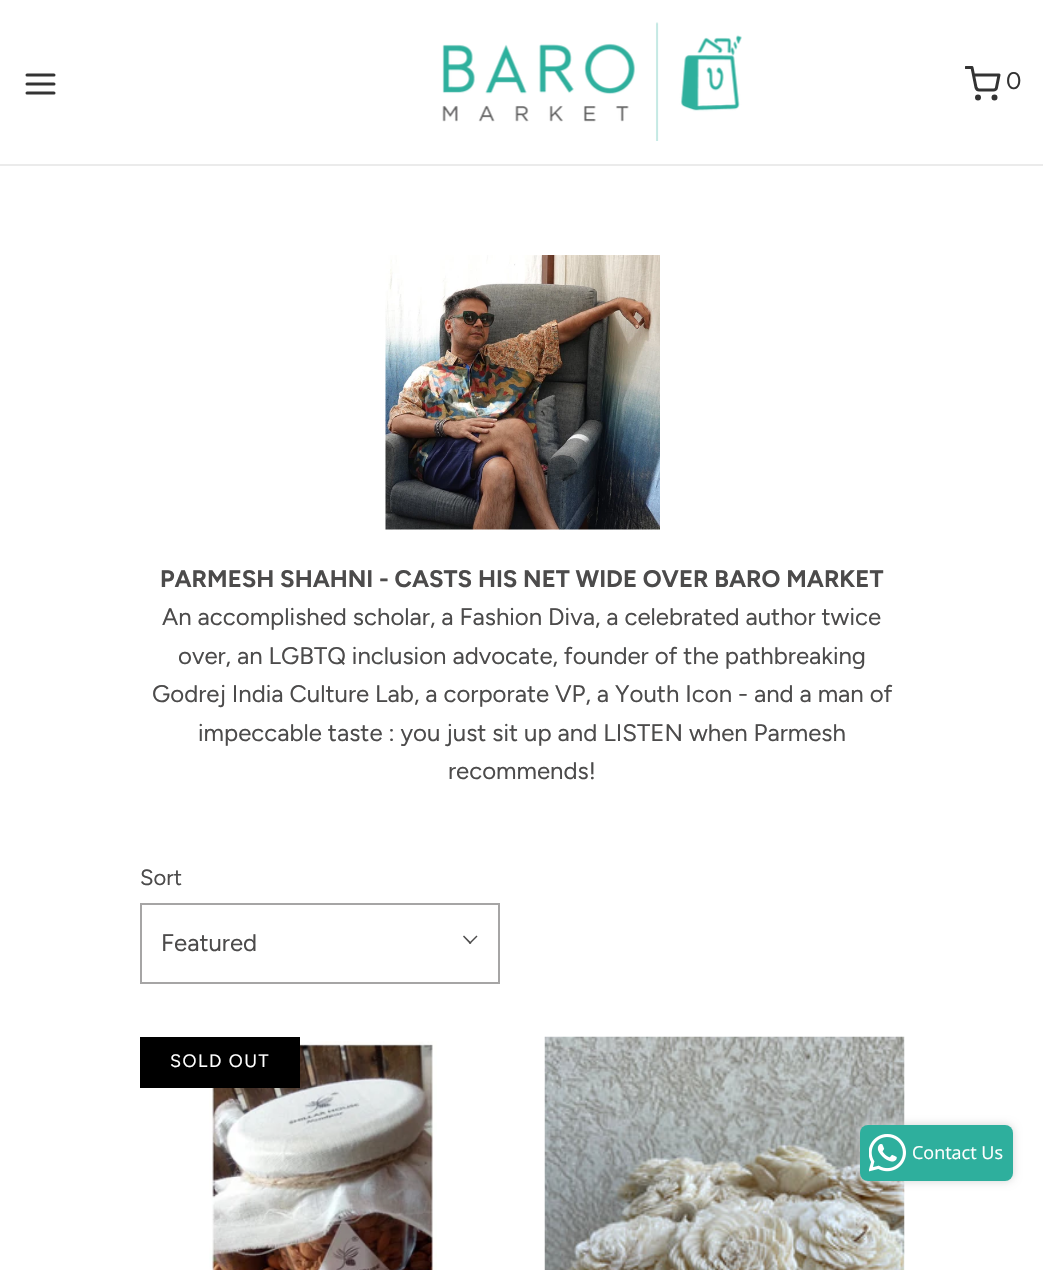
void draw(SkCanvas* canvas) {
    SkPaint paint;
    paint.setAntiAlias(true);
    auto spacedText = [&](const char* s, float x, float y, const SkFont& font, const SkPaint& ink, float letter, float word) {
        std::vector<SkGlyphID> glyphs(font.countText(s, strlen(s), SkTextEncoding::kUTF8));
        std::vector<float> xs(glyphs.size());
        font.textToGlyphs(s, strlen(s), SkTextEncoding::kUTF8, glyphs);
        font.getXPos(glyphs, xs, x);
        float extra = 0;
        for (size_t i = 0; i < glyphs.size(); i++) {
            xs[i] += extra;
            extra += letter + word * (glyphs[i] == font.unicharToGlyph(' '));
        }
        canvas->drawTextBlob(SkTextBlob::MakeFromPosHGlyphs(glyphs, xs, y, font), 0, 0, ink);
    };
    canvas->clear(0xFFFFFFFF);
    paint.setColor(0xFFEBEBEB);
    canvas->drawRect(SkRect::MakeXYWH(0, 164, 1043, 2), paint);
    paint.setStyle(SkPaint::kStroke_Style);
    paint.setStrokeWidth(3);
    paint.setStrokeCap(SkPaint::kRound_Cap);
    paint.setStrokeJoin(SkPaint::kRound_Join);
    paint.setColor(0xFF333333);
    canvas->drawPath(SkPathBuilder().moveTo(27, 84).lineTo(54, 84).moveTo(27, 75).lineTo(54, 75).moveTo(27, 93).lineTo(54, 93).detach(), paint);
    canvas->drawImageRect(SkImages::DeferredFromEncodedData(SkData::MakeFromFileName("img1.png")), SkRect::MakeXYWH(442, 22, 300, 119), SkSamplingOptions());
    SkFont font1(fontMgr->matchFamilyStyle("Figtree", SkFontStyle::Normal()), 24);
    font1.setSubpixel(true);
    paint.setStyle(SkPaint::kFill_Style);
    canvas->drawString("0", 1006, 89, font1, paint);
    paint.setStyle(SkPaint::kStroke_Style);
    paint.setStrokeCap(SkPaint::kButt_Cap);
    paint.setStrokeJoin(SkPaint::kMiter_Join);
    canvas->drawCircle(978, 97.5f, 1.5f, paint);
    canvas->drawCircle(994.5f, 97.5f, 1.5f, paint);
    canvas->save();
    canvas->clipRect(SkRect::MakeXYWH(965, 66, 36, 36));
    paint.setStrokeCap(SkPaint::kRound_Cap);
    paint.setStrokeJoin(SkPaint::kRound_Join);
    canvas->drawPath(SkPathBuilder().moveTo(966, 67.5f).lineTo(972, 67.5f).lineTo(976, 87.5f).cubicTo(976.5f, 89, 977.5f, 90, 979, 90).lineTo(993.5f, 90).cubicTo(995, 90, 996.5f, 89, 996.5f, 87.5f).lineTo(999, 75).lineTo(973.5f, 75).detach(), paint);
    canvas->restore();
    canvas->drawImageRect(SkImages::DeferredFromEncodedData(SkData::MakeFromFileName("img2.png")), SkRect::MakeXYWH(385, 255, 275, 275), SkSamplingOptions());
    SkFont font2(fontMgr->matchFamilyStyle("Figtree", SkFontStyle::Bold()), 24);
    font2.setSubpixel(true);
    paint.setStyle(SkPaint::kFill_Style);
    paint.setColor(0xFF4C4B4B);
    canvas->drawString("PARMESH SHAHNI - CASTS HIS NET WIDE OVER BARO MARKET", 160, 587, font2, paint);
    canvas->drawString("An accomplished scholar, a Fashion Diva, a celebrated author twice", 162, 625, font1, paint);
    canvas->drawString("over, an LGBTQ inclusion advocate, founder of the pathbreaking", 178, 664, font1, paint);
    canvas->drawString("Godrej India Culture Lab, a corporate VP, a Youth Icon - and a man of", 152, 702, font1, paint);
    canvas->drawString("impeccable taste : you just sit up and LISTEN when Parmesh", 198, 741, font1, paint);
    canvas->drawString("recommends!", 448, 779, font1, paint);
    SkFont font3(fontMgr->matchFamilyStyle("Figtree", SkFontStyle::Normal()), 22);
    font3.setSubpixel(true);
    canvas->drawString("Sort", 140, 885, font3, paint);
    paint.setStyle(SkPaint::kStroke_Style);
    paint.setStrokeWidth(2);
    paint.setStrokeCap(SkPaint::kButt_Cap);
    paint.setStrokeJoin(SkPaint::kMiter_Join);
    paint.setColor(0xFFA6A5A5);
    canvas->drawRect(SkRect::MakeXYWH(141, 904, 358, 79), paint);
    paint.setStyle(SkPaint::kFill_Style);
    paint.setColor(0xFF4C4B4B);
    canvas->drawString("Featured", 161, 951, font1, paint);
    canvas->drawPath(SkPathBuilder().moveTo(476.5f, 935.5f).lineTo(477.5f, 936.5f).lineTo(470, 944).lineTo(469, 943).close().detach(), paint);
    canvas->drawPath(SkPathBuilder().moveTo(464, 935.5f).lineTo(471.5f, 943).lineTo(470, 944).lineTo(463, 936.5f).close().detach(), paint);
    canvas->drawImageRect(SkImages::DeferredFromEncodedData(SkData::MakeFromFileName("img3.png")), SkRect::MakeXYWH(209, 1041, 228, 229), SkSamplingOptions());
    paint.setColor(0xFF000000);
    canvas->drawRect(SkRect::MakeXYWH(140, 1037, 160, 51), paint);
    SkFont font4(fontMgr->matchFamilyStyle("Figtree", SkFontStyle::Normal()), 18);
    font4.setSubpixel(true);
    paint.setColor(0xFFFFFFFF);
    spacedText("SOLD OUT", 170, 1067, font4, paint, 1.5f, 0);
    canvas->drawImageRect(SkImages::DeferredFromEncodedData(SkData::MakeFromFileName("img4.png")), SkRect::MakeXYWH(544, 1036, 361, 234), SkSamplingOptions());
    paint.setColor(0xFFD3D3D3);
    paint.setMaskFilter(SkMaskFilter::MakeBlur(kNormal_SkBlurStyle, 4));
    canvas->drawRoundRect(SkRect::MakeXYWH(860, 1125, 153, 56), 8, 8, paint);
    paint.setMaskFilter(nullptr);
    paint.setColor(0xFF2EAF9D);
    canvas->drawRoundRect(SkRect::MakeXYWH(860, 1125, 153, 56), 8, 8, paint);
    canvas->drawImageRect(SkImages::DeferredFromEncodedData(SkData::MakeFromFileName("img5.png")), SkRect::MakeXYWH(869, 1134, 37, 38), SkSamplingOptions());
    SkFont font5(fontMgr->matchFamilyStyle("Open Sans", SkFontStyle::Normal()), 18);
    font5.setSubpixel(true);
    paint.setColor(0xFFFFFFFF);
    canvas->drawString("Contact Us", 912, 1159, font5, paint);
}
